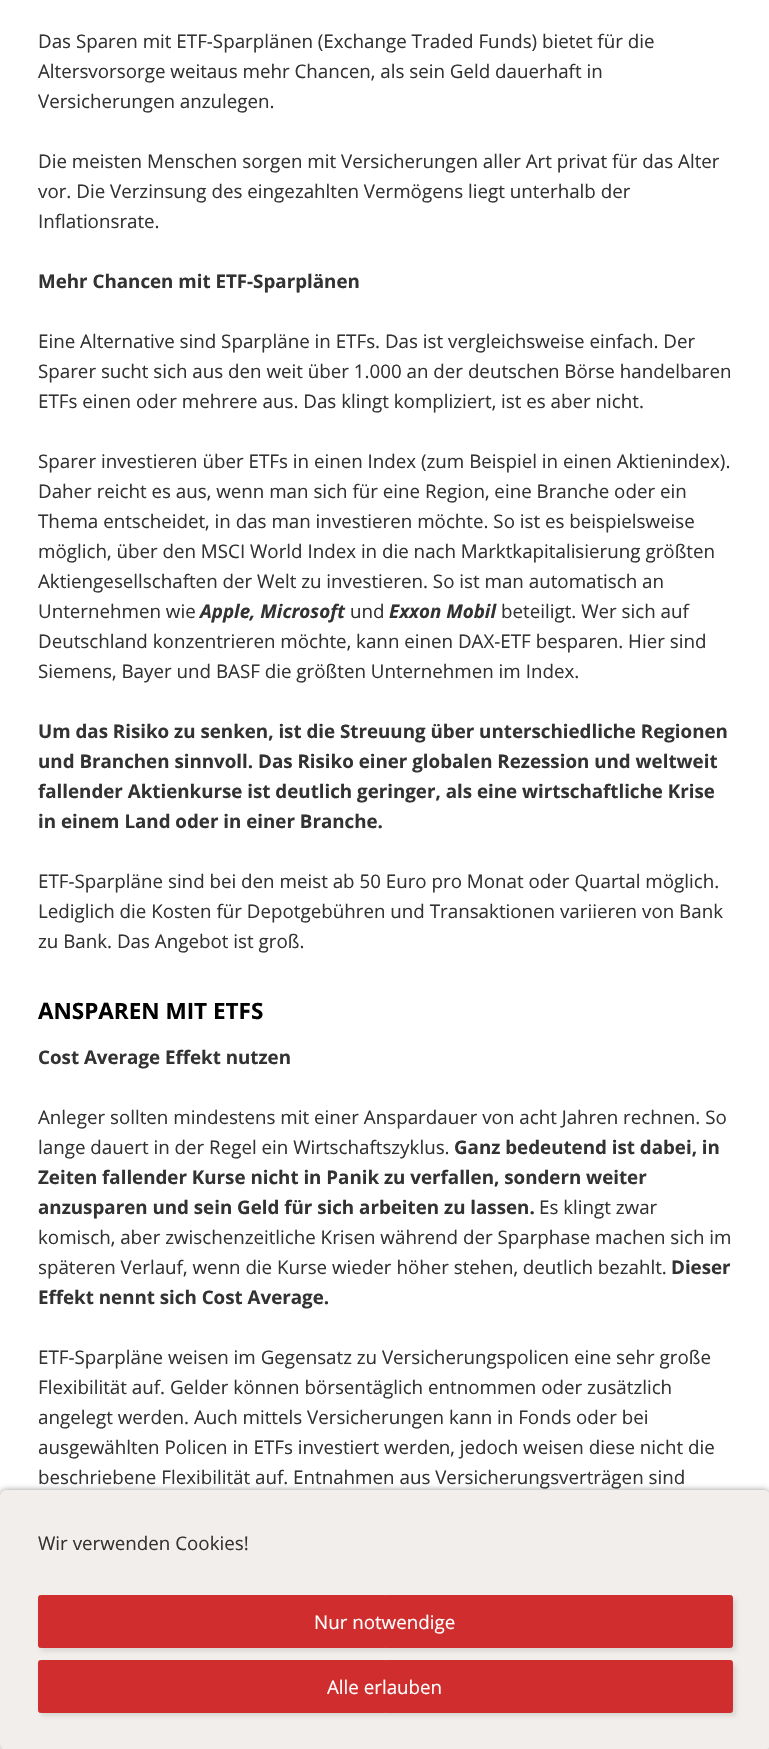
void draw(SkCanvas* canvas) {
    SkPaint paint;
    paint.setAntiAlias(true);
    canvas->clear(0xFFFFFFFF);
    SkFont font1(fontMgr->matchFamilyStyle("Open Sans", SkFontStyle::Normal()), 18.75f);
    font1.setSubpixel(true);
    paint.setColor(0xFF333333);
    canvas->drawString("Das Sparen mit ETF-Sparplänen (Exchange Traded Funds) bietet für die", 38, 48, font1, paint);
    canvas->drawString("Altersvorsorge weitaus mehr Chancen, als sein Geld dauerhaft in", 38, 78, font1, paint);
    canvas->drawString("Versicherungen anzulegen.", 38, 108, font1, paint);
    canvas->drawString("Die meisten Menschen sorgen mit Versicherungen aller Art privat für das Alter", 38, 168, font1, paint);
    canvas->drawString("vor. Die Verzinsung des eingezahlten Vermögens liegt unterhalb der", 38, 198, font1, paint);
    canvas->drawString("Inflationsrate.", 38, 228, font1, paint);
    SkFont font2(fontMgr->matchFamilyStyle("Open Sans", SkFontStyle::Bold()), 18.75f);
    font2.setSubpixel(true);
    canvas->drawString("Mehr Chancen mit ETF-Sparplänen", 38, 288, font2, paint);
    canvas->drawString("Eine Alternative sind Sparpläne in ETFs. Das ist vergleichsweise einfach. Der", 38, 348, font1, paint);
    canvas->drawString("Sparer sucht sich aus den weit über 1.000 an der deutschen Börse handelbaren", 38, 378, font1, paint);
    canvas->drawString("ETFs einen oder mehrere aus. Das klingt kompliziert, ist es aber nicht.", 38, 408, font1, paint);
    canvas->drawString("Sparer investieren über ETFs in einen Index (zum Beispiel in einen Aktienindex).", 38, 468, font1, paint);
    canvas->drawString("Daher reicht es aus, wenn man sich für eine Region, eine Branche oder ein", 38, 498, font1, paint);
    canvas->drawString("Thema entscheidet, in das man investieren möchte. So ist es beispielsweise", 38, 528, font1, paint);
    canvas->drawString("möglich, über den MSCI World Index in die nach Marktkapitalisierung größten", 38, 558, font1, paint);
    canvas->drawString("Aktiengesellschaften der Welt zu investieren. So ist man automatisch an", 38, 588, font1, paint);
    canvas->drawString("Unternehmen wie", 38, 618, font1, paint);
    SkFont font3(fontMgr->matchFamilyStyle("Open Sans", SkFontStyle::BoldItalic()), 18.75f);
    font3.setSubpixel(true);
    canvas->drawString("Apple, Microsoft", 200, 618, font3, paint);
    canvas->drawString("und", 350, 618, font1, paint);
    canvas->drawString("Exxon Mobil", 389, 618, font3, paint);
    canvas->drawString("beteiligt. Wer sich auf", 501, 618, font1, paint);
    canvas->drawString("Deutschland konzentrieren möchte, kann einen DAX-ETF besparen. Hier sind", 38, 648, font1, paint);
    canvas->drawString("Siemens, Bayer und BASF die größten Unternehmen im Index.", 38, 678, font1, paint);
    canvas->drawString("Um das Risiko zu senken, ist die Streuung über unterschiedliche Regionen", 38, 738, font2, paint);
    canvas->drawString("und Branchen sinnvoll. Das Risiko einer globalen Rezession und weltweit", 38, 768, font2, paint);
    canvas->drawString("fallender Aktienkurse ist deutlich geringer, als eine wirtschaftliche Krise", 38, 798, font2, paint);
    canvas->drawString("in einem Land oder in einer Branche.", 38, 828, font2, paint);
    canvas->drawString("ETF-Sparpläne sind bei den meist ab 50 Euro pro Monat oder Quartal möglich.", 38, 888, font1, paint);
    canvas->drawString("Lediglich die Kosten für Depotgebühren und Transaktionen variieren von Bank", 38, 918, font1, paint);
    canvas->drawString("zu Bank. Das Angebot ist groß.", 38, 948, font1, paint);
    SkFont font4(fontMgr->matchFamilyStyle("Open Sans", SkFontStyle::Bold()), 22.5f);
    font4.setSubpixel(true);
    paint.setColor(0xFF000000);
    canvas->drawString("ANSPAREN MIT ETFS", 38, 1019, font4, paint);
    paint.setColor(0xFF333333);
    canvas->drawString("Cost Average Effekt nutzen", 38, 1064, font2, paint);
    canvas->drawString("Anleger sollten mindestens mit einer Anspardauer von acht Jahren rechnen. So", 38, 1124, font1, paint);
    canvas->drawString("lange dauert in der Regel ein Wirtschaftszyklus.", 38, 1154, font1, paint);
    canvas->drawString("Ganz bedeutend ist dabei, in", 454, 1154, font2, paint);
    canvas->drawString("Zeiten fallender Kurse nicht in Panik zu verfallen, sondern weiter", 38, 1184, font2, paint);
    canvas->drawString("anzusparen und sein Geld für sich arbeiten zu lassen.", 38, 1214, font2, paint);
    canvas->drawString("Es klingt zwar", 539, 1214, font1, paint);
    canvas->drawString("komisch, aber zwischenzeitliche Krisen während der Sparphase machen sich im", 38, 1244, font1, paint);
    canvas->drawString("späteren Verlauf, wenn die Kurse wieder höher stehen, deutlich bezahlt.", 38, 1274, font1, paint);
    canvas->drawString("Dieser", 671, 1274, font2, paint);
    canvas->drawString("Effekt nennt sich Cost Average.", 38, 1304, font2, paint);
    canvas->drawString("ETF-Sparpläne weisen im Gegensatz zu Versicherungspolicen eine sehr große", 38, 1364, font1, paint);
    canvas->drawString("Flexibilität auf. Gelder können börsentäglich entnommen oder zusätzlich", 38, 1394, font1, paint);
    canvas->drawString("angelegt werden. Auch mittels Versicherungen kann in Fonds oder bei", 38, 1424, font1, paint);
    canvas->drawString("ausgewählten Policen in ETFs investiert werden, jedoch weisen diese nicht die", 38, 1454, font1, paint);
    canvas->drawString("beschriebene Flexibilität auf. Entnahmen aus Versicherungsverträgen sind", 38, 1484, font1, paint);
    paint.setColor(0x66000000);
    paint.setMaskFilter(SkMaskFilter::MakeBlur(kNormal_SkBlurStyle, 3));
    canvas->drawRoundRect(SkRect::MakeXYWH(0, 1490, 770, 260), 6, 6, paint);
    paint.setMaskFilter(nullptr);
    paint.setColor(0xFFF1EEEB);
    canvas->drawRoundRect(SkRect::MakeXYWH(0, 1490, 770, 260), 6, 6, paint);
    paint.setColor(0xFF333333);
    canvas->drawString("Wir verwenden Cookies!", 38, 1550, font1, paint);
    paint.setColor(0x1A000000);
    paint.setMaskFilter(SkMaskFilter::MakeBlur(kNormal_SkBlurStyle, 2));
    canvas->drawRoundRect(SkRect::MakeXYWH(41, 1599, 695, 52), 2.5f, 2.5f, paint);
    paint.setMaskFilter(nullptr);
    paint.setColor(0xFFD02E2E);
    canvas->drawRoundRect(SkRect::MakeXYWH(38.5f, 1595.5f, 694, 52), 2, 2, paint);
    paint.setStyle(SkPaint::kStroke_Style);
    paint.setStrokeWidth(1);
    canvas->drawRoundRect(SkRect::MakeXYWH(38.5f, 1595.5f, 694, 52), 2, 2, paint);
    paint.setStyle(SkPaint::kFill_Style);
    paint.setColor(0xFFFFFFFF);
    canvas->drawString("Nur notwendige", 314, 1629, font1, paint);
    paint.setColor(0x1A000000);
    paint.setMaskFilter(SkMaskFilter::MakeBlur(kNormal_SkBlurStyle, 2));
    canvas->drawRoundRect(SkRect::MakeXYWH(41, 1664, 695, 52), 2.5f, 2.5f, paint);
    paint.setMaskFilter(nullptr);
    paint.setColor(0xFFD02E2E);
    canvas->drawRoundRect(SkRect::MakeXYWH(38.5f, 1660.5f, 694, 52), 2, 2, paint);
    paint.setStyle(SkPaint::kStroke_Style);
    canvas->drawRoundRect(SkRect::MakeXYWH(38.5f, 1660.5f, 694, 52), 2, 2, paint);
    paint.setStyle(SkPaint::kFill_Style);
    paint.setColor(0xFFFFFFFF);
    canvas->drawString("Alle erlauben", 327, 1694, font1, paint);
}
